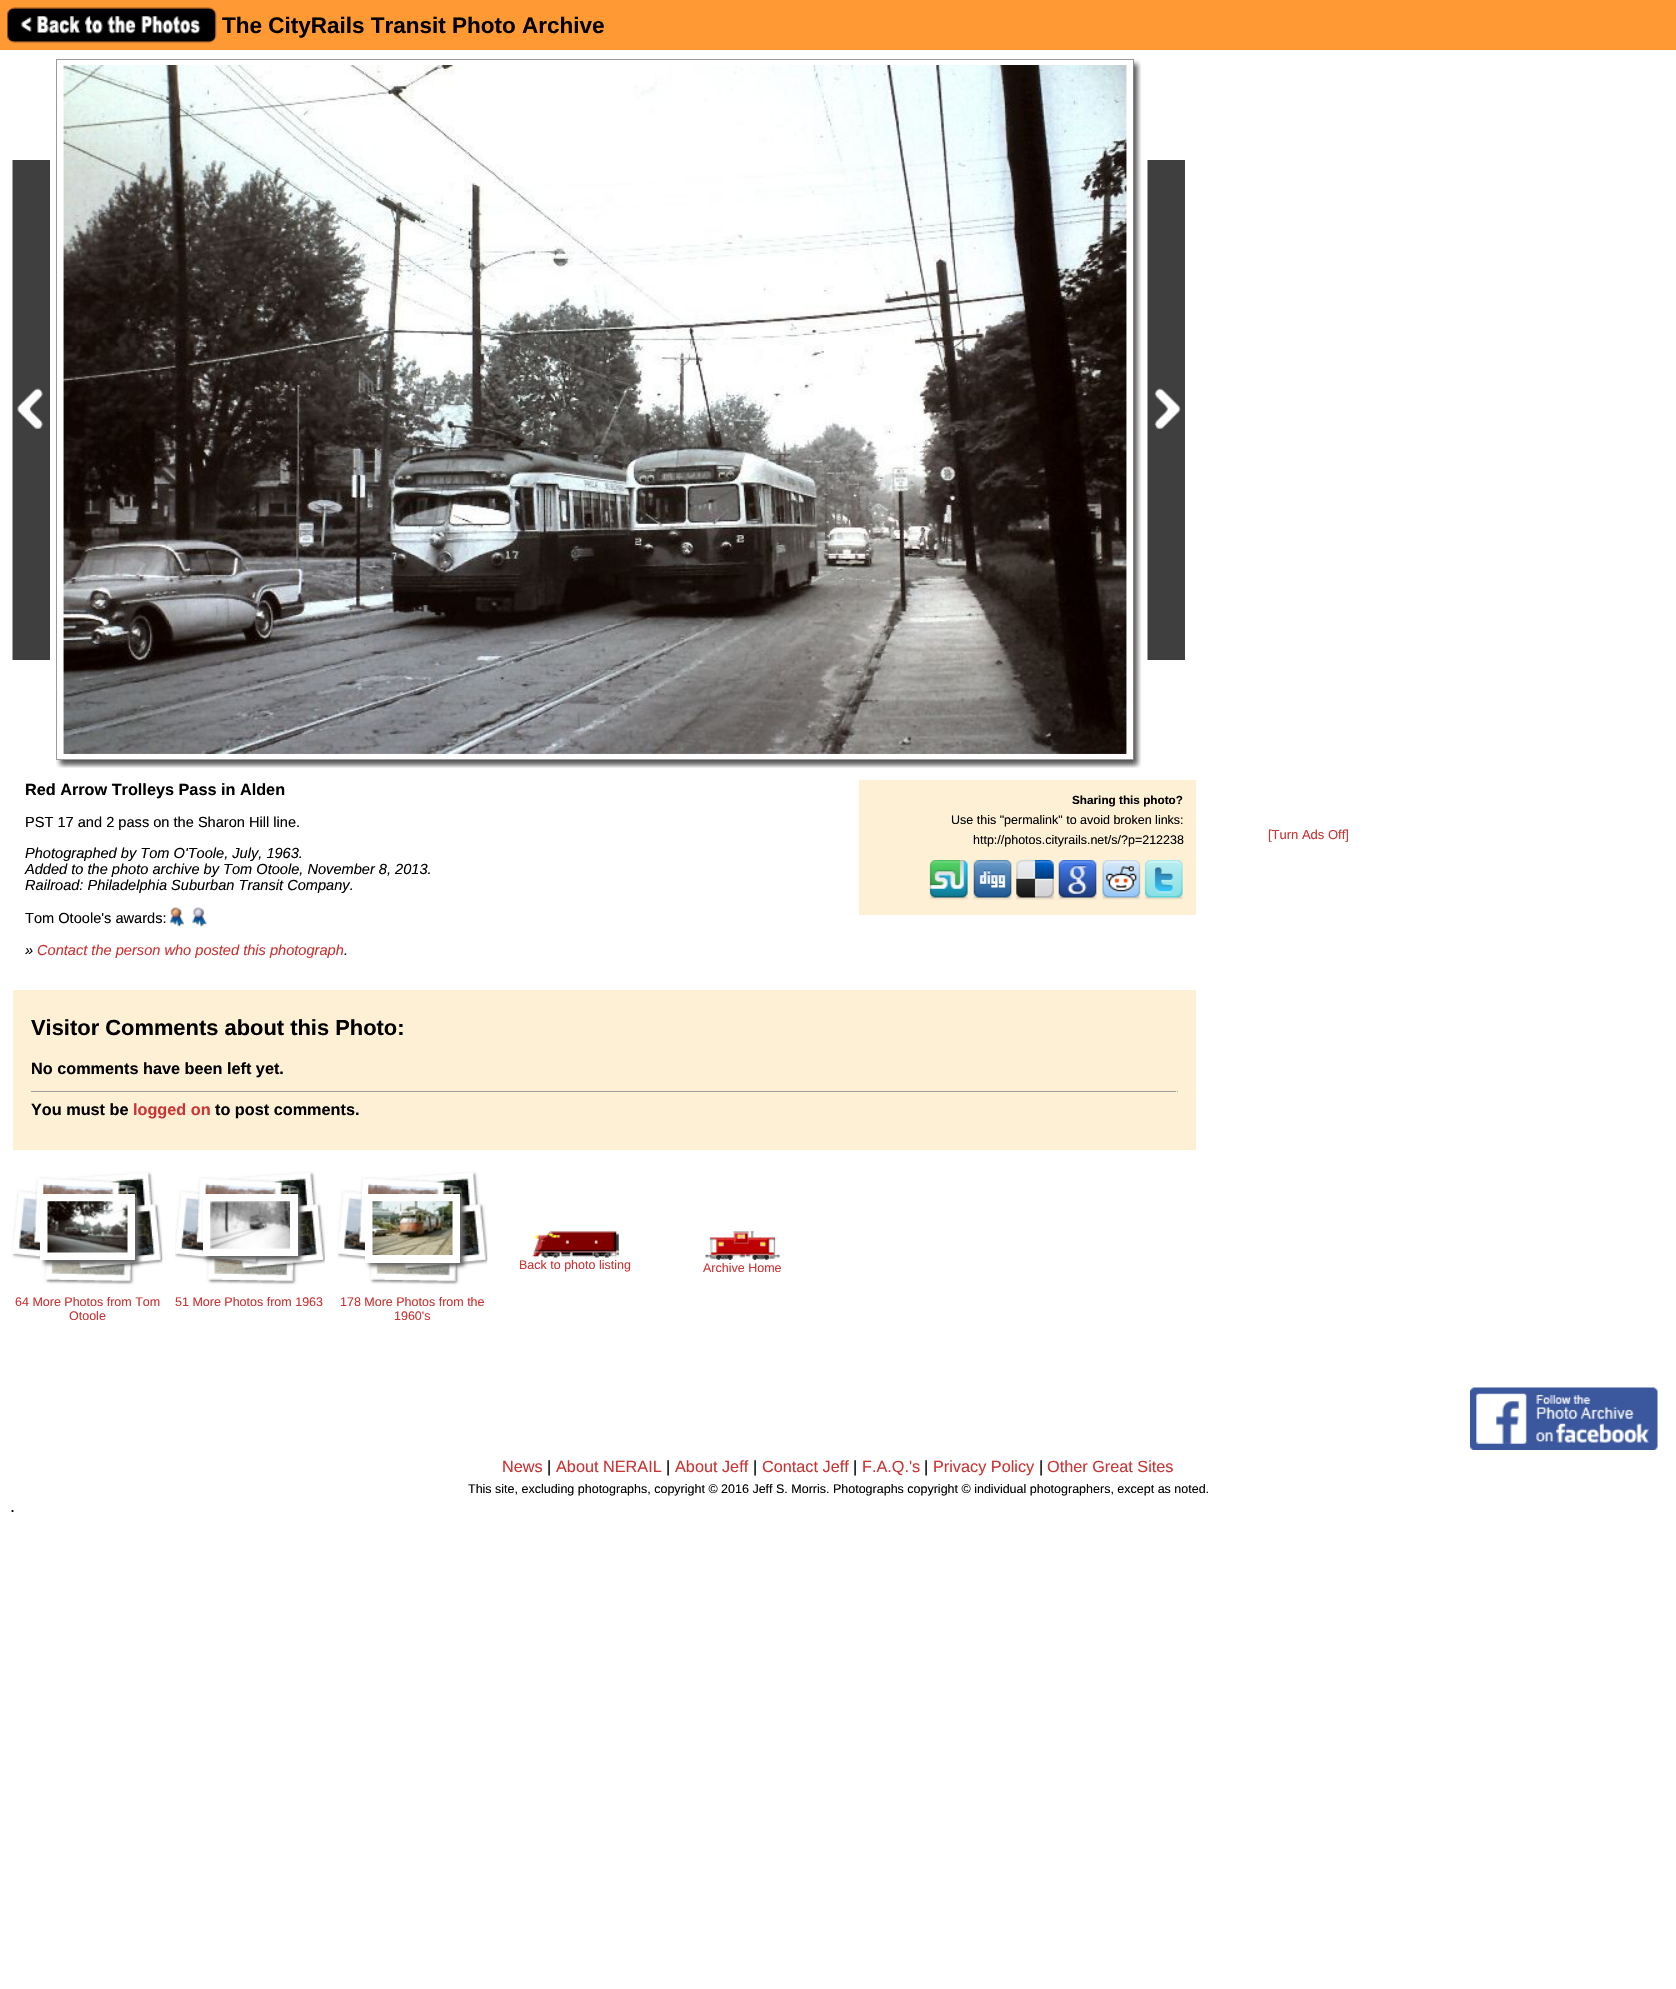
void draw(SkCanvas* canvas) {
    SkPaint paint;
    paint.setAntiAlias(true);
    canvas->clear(0xFFFFFFFF);
    paint.setColor(0xFFFF9933);
    canvas->drawRect(SkRect::MakeXYWH(0, 0, 1676, 50), paint);
    canvas->drawImageRect(SkImages::DeferredFromEncodedData(SkData::MakeFromFileName("img1.png")), SkRect::MakeXYWH(7, 7, 210, 36), SkSamplingOptions());
    SkFont font1(fontMgr->matchFamilyStyle("Liberation Sans", SkFontStyle::Bold()), 22.5f);
    font1.setSubpixel(true);
    paint.setColor(0xFF000000);
    canvas->drawString("The CityRails Transit Photo Archive", 222, 33, font1, paint);
    canvas->drawImageRect(SkImages::DeferredFromEncodedData(SkData::MakeFromFileName("img2.png")), SkRect::MakeXYWH(12, 160, 38, 500), SkSamplingOptions());
    paint.setStyle(SkPaint::kStroke_Style);
    paint.setStrokeWidth(1);
    paint.setColor(0xFF9A9A9A);
    canvas->drawRect(SkRect::MakeXYWH(56.5f, 59.5f, 1077, 700), paint);
    canvas->drawImageRect(SkImages::DeferredFromEncodedData(SkData::MakeFromFileName("img3.png")), SkRect::MakeXYWH(63, 65, 1064, 689), SkSamplingOptions());
    canvas->drawImageRect(SkImages::DeferredFromEncodedData(SkData::MakeFromFileName("img4.png")), SkRect::MakeXYWH(63, 65, 1064, 689), SkSamplingOptions());
    canvas->drawImageRect(SkImages::DeferredFromEncodedData(SkData::MakeFromFileName("img5.png")), SkRect::MakeXYWH(1133, 59, 8, 701), SkSamplingOptions());
    canvas->drawImageRect(SkImages::DeferredFromEncodedData(SkData::MakeFromFileName("img6.png")), SkRect::MakeXYWH(1147, 160, 38, 500), SkSamplingOptions());
    canvas->drawImageRect(SkImages::DeferredFromEncodedData(SkData::MakeFromFileName("img7.png")), SkRect::MakeXYWH(56, 760, 1078, 8), SkSamplingOptions());
    canvas->drawImageRect(SkImages::DeferredFromEncodedData(SkData::MakeFromFileName("img8.png")), SkRect::MakeXYWH(1133, 760, 8, 8), SkSamplingOptions());
    SkFont font2(fontMgr->matchFamilyStyle("Liberation Sans", SkFontStyle::Bold()), 16.25f);
    font2.setSubpixel(true);
    paint.setStyle(SkPaint::kFill_Style);
    paint.setColor(0xFF000000);
    canvas->drawString("Red Arrow Trolleys Pass in Alden", 25, 795, font2, paint);
    SkFont font3(fontMgr->matchFamilyStyle("Liberation Sans", SkFontStyle::Normal()), 14.6f);
    font3.setSubpixel(true);
    canvas->drawString("PST 17 and 2 pass on the Sharon Hill line.", 25, 827, font3, paint);
    SkFont font4(fontMgr->matchFamilyStyle("Liberation Sans", SkFontStyle::Italic()), 14.6f);
    font4.setSubpixel(true);
    canvas->drawString("Photographed by Tom O'Toole, July, 1963.", 25, 858, font4, paint);
    canvas->drawString("Added to the photo archive by Tom Otoole, November 8, 2013.", 25, 874, font4, paint);
    canvas->drawString("Railroad: Philadelphia Suburban Transit Company.", 25, 890, font4, paint);
    canvas->drawString("Tom Otoole's awards:", 25, 923, font3, paint);
    canvas->drawImageRect(SkImages::DeferredFromEncodedData(SkData::MakeFromFileName("img9.png")), SkRect::MakeXYWH(169, 907, 15, 20), SkSamplingOptions());
    canvas->drawImageRect(SkImages::DeferredFromEncodedData(SkData::MakeFromFileName("img10.png")), SkRect::MakeXYWH(192, 907, 15, 20), SkSamplingOptions());
    canvas->drawString("»", 25, 955, font4, paint);
    paint.setColor(0xFFCC3333);
    canvas->drawString("Contact the person who posted this photograph", 37, 955, font4, paint);
    paint.setColor(0xFF000000);
    canvas->drawString(".", 344, 955, font4, paint);
    paint.setColor(0xFFFDF0D5);
    canvas->drawRect(SkRect::MakeXYWH(859, 780, 337, 135), paint);
    SkFont font5(fontMgr->matchFamilyStyle("Liberation Sans", SkFontStyle::Bold()), 11.75f);
    font5.setSubpixel(true);
    paint.setColor(0xFF000000);
    canvas->drawString("Sharing this photo?", 1072, 804, font5, paint);
    SkFont font6(fontMgr->matchFamilyStyle("Liberation Sans", SkFontStyle::Normal()), 12.5f);
    font6.setSubpixel(true);
    canvas->drawString("Use this \"permalink\" to avoid broken links:", 951, 824, font6, paint);
    canvas->drawString("http://photos.cityrails.net/s/?p=212238", 973, 844, font6, paint);
    canvas->drawImageRect(SkImages::DeferredFromEncodedData(SkData::MakeFromFileName("img11.png")), SkRect::MakeXYWH(929, 860, 39, 40), SkSamplingOptions());
    canvas->drawImageRect(SkImages::DeferredFromEncodedData(SkData::MakeFromFileName("img12.png")), SkRect::MakeXYWH(973, 860, 39, 40), SkSamplingOptions());
    canvas->drawImageRect(SkImages::DeferredFromEncodedData(SkData::MakeFromFileName("img13.png")), SkRect::MakeXYWH(1015, 860, 40, 40), SkSamplingOptions());
    canvas->drawImageRect(SkImages::DeferredFromEncodedData(SkData::MakeFromFileName("img14.png")), SkRect::MakeXYWH(1058, 860, 39, 40), SkSamplingOptions());
    canvas->drawImageRect(SkImages::DeferredFromEncodedData(SkData::MakeFromFileName("img15.png")), SkRect::MakeXYWH(1102, 860, 39, 40), SkSamplingOptions());
    canvas->drawImageRect(SkImages::DeferredFromEncodedData(SkData::MakeFromFileName("img16.png")), SkRect::MakeXYWH(1144, 860, 39, 40), SkSamplingOptions());
    SkFont font7(fontMgr->matchFamilyStyle("Liberation Sans", SkFontStyle::Normal()), 13);
    font7.setSubpixel(true);
    paint.setColor(0xFFCC3333);
    canvas->drawString("[Turn Ads Off]", 1268, 839, font7, paint);
    paint.setColor(0xFFFDF0D5);
    canvas->drawRect(SkRect::MakeXYWH(13, 990, 1183, 160), paint);
    SkFont font8(fontMgr->matchFamilyStyle("Liberation Sans", SkFontStyle::Bold()), 21.9f);
    font8.setSubpixel(true);
    paint.setColor(0xFF000000);
    canvas->drawString("Visitor Comments about this Photo:", 31, 1035, font8, paint);
    canvas->drawString("No comments have been left yet.", 31, 1074, font2, paint);
    paint.setColor(0xFF9F9F9F);
    canvas->drawRect(SkRect::MakeXYWH(31, 1091, 1147, 1), paint);
    paint.setColor(0xFFEEEEEE);
    canvas->drawRect(SkRect::MakeXYWH(1176, 1091, 1, 1), paint);
    paint.setColor(0xFF000000);
    canvas->drawString("You must be", 31, 1115, font2, paint);
    paint.setColor(0xFFCC3333);
    canvas->drawString("logged on", 133, 1115, font2, paint);
    paint.setColor(0xFF000000);
    canvas->drawString("to post comments.", 215, 1115, font2, paint);
    canvas->drawImageRect(SkImages::DeferredFromEncodedData(SkData::MakeFromFileName("img17.png")), SkRect::MakeXYWH(532, 1231, 87, 27), SkSamplingOptions());
    paint.setColor(0xFFCC3333);
    canvas->drawString("Back to photo listing", 519, 1269, font6, paint);
    canvas->drawImageRect(SkImages::DeferredFromEncodedData(SkData::MakeFromFileName("img18.png")), SkRect::MakeXYWH(705, 1231, 75, 29), SkSamplingOptions());
    canvas->drawString("Archive Home", 703, 1272, font6, paint);
    canvas->drawImageRect(SkImages::DeferredFromEncodedData(SkData::MakeFromFileName("img19.png")), SkRect::MakeXYWH(12, 1171, 151, 114), SkSamplingOptions());
    paint.setColor(0xFF666666);
    paint.setMaskFilter(SkMaskFilter::MakeBlur(kNormal_SkBlurStyle, 2));
    canvas->drawRect(SkRect::MakeXYWH(44, 1198, 95, 66), paint);
    paint.setMaskFilter(nullptr);
    paint.setColor(0xFFFFFFFF);
    canvas->drawRect(SkRect::MakeXYWH(40, 1194, 95, 66), paint);
    canvas->drawImageRect(SkImages::DeferredFromEncodedData(SkData::MakeFromFileName("img20.png")), SkRect::MakeXYWH(47, 1201, 81, 52), SkSamplingOptions());
    paint.setColor(0xFFCC3333);
    canvas->drawString("64 More Photos from Tom", 15, 1306, font6, paint);
    canvas->drawString("Otoole", 69, 1320, font6, paint);
    canvas->drawImageRect(SkImages::DeferredFromEncodedData(SkData::MakeFromFileName("img21.png")), SkRect::MakeXYWH(175, 1171, 150, 114), SkSamplingOptions());
    paint.setColor(0xFF666666);
    paint.setMaskFilter(SkMaskFilter::MakeBlur(kNormal_SkBlurStyle, 2));
    canvas->drawRect(SkRect::MakeXYWH(206, 1198, 95, 62), paint);
    paint.setMaskFilter(nullptr);
    paint.setColor(0xFFFFFFFF);
    canvas->drawRect(SkRect::MakeXYWH(203, 1194, 95, 62), paint);
    canvas->drawImageRect(SkImages::DeferredFromEncodedData(SkData::MakeFromFileName("img22.png")), SkRect::MakeXYWH(210, 1201, 80, 48), SkSamplingOptions());
    paint.setColor(0xFFCC3333);
    canvas->drawString("51 More Photos from 1963", 175, 1306, font6, paint);
    canvas->drawImageRect(SkImages::DeferredFromEncodedData(SkData::MakeFromFileName("img23.png")), SkRect::MakeXYWH(337, 1171, 151, 114), SkSamplingOptions());
    paint.setColor(0xFF666666);
    paint.setMaskFilter(SkMaskFilter::MakeBlur(kNormal_SkBlurStyle, 2));
    canvas->drawRect(SkRect::MakeXYWH(369, 1198, 95, 68), paint);
    paint.setMaskFilter(nullptr);
    paint.setColor(0xFFFFFFFF);
    canvas->drawRect(SkRect::MakeXYWH(365, 1194, 95, 69), paint);
    canvas->drawImageRect(SkImages::DeferredFromEncodedData(SkData::MakeFromFileName("img24.png")), SkRect::MakeXYWH(372, 1201, 81, 54), SkSamplingOptions());
    paint.setColor(0xFFCC3333);
    canvas->drawString("178 More Photos from the", 340, 1306, font6, paint);
    canvas->drawString("1960's", 394, 1320, font6, paint);
    canvas->drawImageRect(SkImages::DeferredFromEncodedData(SkData::MakeFromFileName("img25.png")), SkRect::MakeXYWH(1470, 1387, 188, 63), SkSamplingOptions());
    SkFont font9(fontMgr->matchFamilyStyle("Liberation Sans", SkFontStyle::Normal()), 16.25f);
    font9.setSubpixel(true);
    canvas->drawString("News", 502, 1472, font9, paint);
    paint.setColor(0xFF000000);
    canvas->drawString("|", 547, 1472, font9, paint);
    paint.setColor(0xFFCC3333);
    canvas->drawString("About NERAIL", 556, 1472, font9, paint);
    paint.setColor(0xFF000000);
    canvas->drawString("|", 666, 1472, font9, paint);
    paint.setColor(0xFFCC3333);
    canvas->drawString("About Jeff", 675, 1472, font9, paint);
    paint.setColor(0xFF000000);
    canvas->drawString("|", 753, 1472, font9, paint);
    paint.setColor(0xFFCC3333);
    canvas->drawString("Contact Jeff", 762, 1472, font9, paint);
    paint.setColor(0xFF000000);
    canvas->drawString("|", 853, 1472, font9, paint);
    paint.setColor(0xFFCC3333);
    canvas->drawString("F.A.Q.'s", 862, 1472, font9, paint);
    paint.setColor(0xFF000000);
    canvas->drawString("|", 924, 1472, font9, paint);
    paint.setColor(0xFFCC3333);
    canvas->drawString("Privacy Policy", 933, 1472, font9, paint);
    paint.setColor(0xFF000000);
    canvas->drawString("|", 1039, 1472, font9, paint);
    paint.setColor(0xFFCC3333);
    canvas->drawString("Other Great Sites", 1047, 1472, font9, paint);
    paint.setColor(0xFF000000);
    canvas->drawString("This site, excluding photographs, copyright © 2016 Jeff S. Morris. Photographs copyright © individual photographers, except as noted.", 468, 1493, font6, paint);
    SkFont font10(fontMgr->matchFamilyStyle("Liberation Sans", SkFontStyle::Normal()), 18);
    font10.setSubpixel(true);
    canvas->drawString(".", 10, 1512, font10, paint);
}
